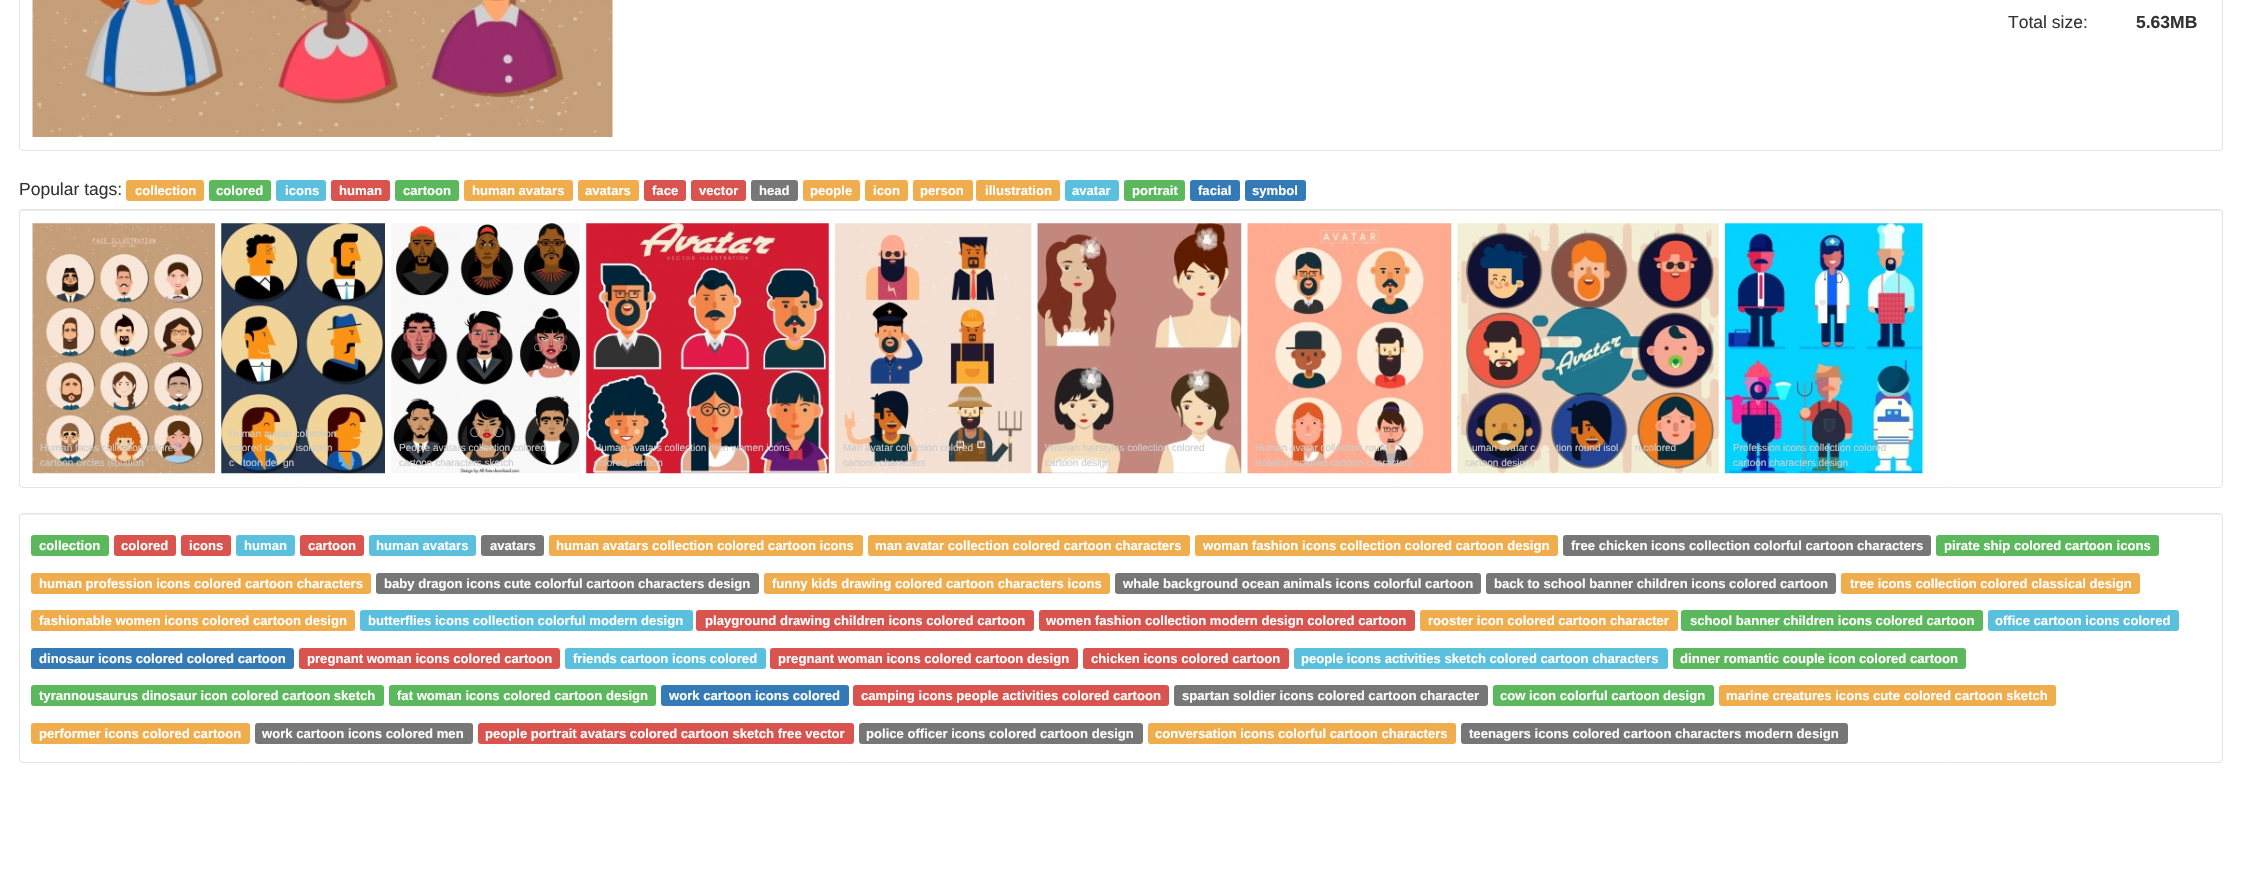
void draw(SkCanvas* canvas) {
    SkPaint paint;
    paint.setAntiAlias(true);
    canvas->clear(0xFFFFFFFF);
    paint.setStyle(SkPaint::kStroke_Style);
    paint.setStrokeWidth(1);
    paint.setColor(0xFFE3E3E3);
    canvas->drawRoundRect(SkRect::MakeXYWH(19.5f, -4.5f, 2203, 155), 3.5f, 3.5f, paint);
    canvas->drawImageRect(SkImages::DeferredFromEncodedData(SkData::MakeFromFileName("img1.png")), SkRect::MakeXYWH(32, 0, 581, 137), SkSamplingOptions());
    SkFont font1(fontMgr->matchFamilyStyle("Liberation Sans", SkFontStyle::Normal()), 17.5f);
    font1.setSubpixel(true);
    paint.setStyle(SkPaint::kFill_Style);
    paint.setColor(0xFF333333);
    canvas->drawString("Total size:", 2008, 28, font1, paint);
    SkFont font2(fontMgr->matchFamilyStyle("Liberation Sans", SkFontStyle::Bold()), 17.5f);
    font2.setSubpixel(true);
    canvas->drawString("5.63MB", 2136, 28, font2, paint);
    canvas->drawString("Popular tags:", 19, 195, font1, paint);
    paint.setColor(0xFFF0AD4E);
    canvas->drawRoundRect(SkRect::MakeXYWH(126, 180, 78, 21), 3, 3, paint);
    SkFont font3(fontMgr->matchFamilyStyle("Liberation Sans", SkFontStyle::Bold()), 13.1f);
    font3.setSubpixel(true);
    paint.setColor(0xFFFFFFFF);
    canvas->drawString("collection", 135, 195, font3, paint);
    paint.setColor(0xFF5CB85C);
    canvas->drawRoundRect(SkRect::MakeXYWH(209, 180, 62, 21), 3, 3, paint);
    paint.setColor(0xFFFFFFFF);
    canvas->drawString("colored", 216, 195, font3, paint);
    paint.setColor(0xFF5BC0DE);
    canvas->drawRoundRect(SkRect::MakeXYWH(276, 180, 50, 21), 3, 3, paint);
    paint.setColor(0xFFFFFFFF);
    canvas->drawString("icons", 285, 195, font3, paint);
    paint.setColor(0xFFD9534F);
    canvas->drawRoundRect(SkRect::MakeXYWH(331, 180, 59, 21), 3, 3, paint);
    paint.setColor(0xFFFFFFFF);
    canvas->drawString("human", 339, 195, font3, paint);
    paint.setColor(0xFF5CB85C);
    canvas->drawRoundRect(SkRect::MakeXYWH(395, 180, 64, 21), 3, 3, paint);
    paint.setColor(0xFFFFFFFF);
    canvas->drawString("cartoon", 403, 195, font3, paint);
    paint.setColor(0xFFF0AD4E);
    canvas->drawRoundRect(SkRect::MakeXYWH(464, 180, 109, 21), 3, 3, paint);
    paint.setColor(0xFFFFFFFF);
    canvas->drawString("human avatars", 472, 195, font3, paint);
    paint.setColor(0xFFF0AD4E);
    canvas->drawRoundRect(SkRect::MakeXYWH(578, 180, 61, 21), 3, 3, paint);
    paint.setColor(0xFFFFFFFF);
    canvas->drawString("avatars", 585, 195, font3, paint);
    paint.setColor(0xFFD9534F);
    canvas->drawRoundRect(SkRect::MakeXYWH(644, 180, 42, 21), 3, 3, paint);
    paint.setColor(0xFFFFFFFF);
    canvas->drawString("face", 652, 195, font3, paint);
    paint.setColor(0xFFD9534F);
    canvas->drawRoundRect(SkRect::MakeXYWH(691, 180, 55, 21), 3, 3, paint);
    paint.setColor(0xFFFFFFFF);
    canvas->drawString("vector", 699, 195, font3, paint);
    paint.setColor(0xFF777777);
    canvas->drawRoundRect(SkRect::MakeXYWH(751, 180, 47, 21), 3, 3, paint);
    paint.setColor(0xFFFFFFFF);
    canvas->drawString("head", 759, 195, font3, paint);
    paint.setColor(0xFFF0AD4E);
    canvas->drawRoundRect(SkRect::MakeXYWH(803, 180, 57, 21), 3, 3, paint);
    paint.setColor(0xFFFFFFFF);
    canvas->drawString("people", 810, 195, font3, paint);
    paint.setColor(0xFFF0AD4E);
    canvas->drawRoundRect(SkRect::MakeXYWH(865, 180, 43, 21), 3, 3, paint);
    paint.setColor(0xFFFFFFFF);
    canvas->drawString("icon", 873, 195, font3, paint);
    paint.setColor(0xFFF0AD4E);
    canvas->drawRoundRect(SkRect::MakeXYWH(913, 180, 60, 21), 3, 3, paint);
    paint.setColor(0xFFFFFFFF);
    canvas->drawString("person", 920, 195, font3, paint);
    paint.setColor(0xFFF0AD4E);
    canvas->drawRoundRect(SkRect::MakeXYWH(976, 180, 84, 21), 3, 3, paint);
    paint.setColor(0xFFFFFFFF);
    canvas->drawString("illustration", 985, 195, font3, paint);
    paint.setColor(0xFF5BC0DE);
    canvas->drawRoundRect(SkRect::MakeXYWH(1065, 180, 54, 21), 3, 3, paint);
    paint.setColor(0xFFFFFFFF);
    canvas->drawString("avatar", 1072, 195, font3, paint);
    paint.setColor(0xFF5CB85C);
    canvas->drawRoundRect(SkRect::MakeXYWH(1124, 180, 61, 21), 3, 3, paint);
    paint.setColor(0xFFFFFFFF);
    canvas->drawString("portrait", 1132, 195, font3, paint);
    paint.setColor(0xFF337AB7);
    canvas->drawRoundRect(SkRect::MakeXYWH(1190, 180, 50, 21), 3, 3, paint);
    paint.setColor(0xFFFFFFFF);
    canvas->drawString("facial", 1198, 195, font3, paint);
    paint.setColor(0xFF337AB7);
    canvas->drawRoundRect(SkRect::MakeXYWH(1245, 180, 61, 21), 3, 3, paint);
    paint.setColor(0xFFFFFFFF);
    canvas->drawString("symbol", 1252, 195, font3, paint);
    paint.setColor(0xFFF2F2F2);
    canvas->drawPath(SkPathBuilder().moveTo(22, 211).lineTo(2219, 211).cubicTo(2220, 211, 2221, 212, 2221, 214).lineTo(2221, 212).cubicTo(2221, 211, 2220, 210, 2218, 210).lineTo(22, 210).cubicTo(21, 210, 20, 211, 20, 212).lineTo(20, 214).cubicTo(20, 212, 21, 211, 22, 211).close().detach(), paint);
    paint.setStyle(SkPaint::kStroke_Style);
    paint.setColor(0xFFE3E3E3);
    canvas->drawRoundRect(SkRect::MakeXYWH(19.5f, 209.5f, 2203, 278), 3.5f, 3.5f, paint);
    paint.setStyle(SkPaint::kFill_Style);
    paint.setColor(0xFFEBEBEB);
    canvas->drawRect(SkRect::MakeXYWH(20, 210, 2201, 1), paint);
    canvas->drawImageRect(SkImages::DeferredFromEncodedData(SkData::MakeFromFileName("img2.png")), SkRect::MakeXYWH(32, 223, 183, 251), SkSamplingOptions());
    SkFont font4(fontMgr->matchFamilyStyle("Liberation Sans", SkFontStyle::Normal()), 10);
    font4.setSubpixel(true);
    paint.setColor(0xFFCCCCCC);
    canvas->drawString("Human faces collection colored", 40, 451, font4, paint);
    canvas->drawString("cartoon circles isolation", 40, 466, font4, paint);
    canvas->drawImageRect(SkImages::DeferredFromEncodedData(SkData::MakeFromFileName("img3.png")), SkRect::MakeXYWH(221, 223, 164, 251), SkSamplingOptions());
    canvas->drawString("Human avatar collection", 229, 437, font4, paint);
    canvas->drawString("colored circles isolation", 229, 451, font4, paint);
    canvas->drawString("c", 229, 466, font4, paint);
    canvas->drawString("toon de", 243, 466, font4, paint);
    canvas->drawString("gn", 283, 466, font4, paint);
    canvas->drawImageRect(SkImages::DeferredFromEncodedData(SkData::MakeFromFileName("img4.png")), SkRect::MakeXYWH(391, 223, 189, 251), SkSamplingOptions());
    canvas->drawString("People avatars collection colored", 399, 451, font4, paint);
    canvas->drawString("cartoon characters sketch", 399, 466, font4, paint);
    canvas->drawImageRect(SkImages::DeferredFromEncodedData(SkData::MakeFromFileName("img5.png")), SkRect::MakeXYWH(586, 223, 243, 251), SkSamplingOptions());
    canvas->drawString("Human avatars collection men women icons", 594, 451, font4, paint);
    canvas->drawString("colored cartoon", 594, 466, font4, paint);
    canvas->drawImageRect(SkImages::DeferredFromEncodedData(SkData::MakeFromFileName("img6.png")), SkRect::MakeXYWH(835, 223, 197, 251), SkSamplingOptions());
    canvas->drawString("Man avatar collection colored", 843, 451, font4, paint);
    canvas->drawString("cartoon characters", 843, 466, font4, paint);
    canvas->drawImageRect(SkImages::DeferredFromEncodedData(SkData::MakeFromFileName("img7.png")), SkRect::MakeXYWH(1037, 223, 205, 251), SkSamplingOptions());
    canvas->drawString("Woman hairstyles collection colored", 1045, 451, font4, paint);
    canvas->drawString("cartoon design", 1045, 466, font4, paint);
    canvas->drawImageRect(SkImages::DeferredFromEncodedData(SkData::MakeFromFileName("img8.png")), SkRect::MakeXYWH(1247, 223, 205, 251), SkSamplingOptions());
    canvas->drawString("Human avatar collection round", 1255, 451, font4, paint);
    canvas->drawString("isolation colored cartoon characters", 1255, 466, font4, paint);
    canvas->drawImageRect(SkImages::DeferredFromEncodedData(SkData::MakeFromFileName("img9.png")), SkRect::MakeXYWH(1457, 223, 262, 251), SkSamplingOptions());
    canvas->drawString("uman avatar c", 1472, 451, font4, paint);
    canvas->drawString("tion round isol", 1556, 451, font4, paint);
    canvas->drawString("n colored", 1635, 451, font4, paint);
    canvas->drawString("cartoon design", 1465, 466, font4, paint);
    canvas->drawImageRect(SkImages::DeferredFromEncodedData(SkData::MakeFromFileName("img10.png")), SkRect::MakeXYWH(1725, 223, 198, 251), SkSamplingOptions());
    canvas->drawString("Profession icons collection colored", 1733, 451, font4, paint);
    canvas->drawString("cartoon characters design", 1733, 466, font4, paint);
    paint.setColor(0xFFF2F2F2);
    canvas->drawPath(SkPathBuilder().moveTo(22, 515).lineTo(2219, 515).cubicTo(2220, 515, 2221, 516, 2221, 518).lineTo(2221, 516).cubicTo(2221, 515, 2220, 514, 2218, 514).lineTo(22, 514).cubicTo(21, 514, 20, 515, 20, 516).lineTo(20, 518).cubicTo(20, 516, 21, 515, 22, 515).close().detach(), paint);
    paint.setStyle(SkPaint::kStroke_Style);
    paint.setColor(0xFFE3E3E3);
    canvas->drawRoundRect(SkRect::MakeXYWH(19.5f, 513.5f, 2203, 249), 3.5f, 3.5f, paint);
    paint.setStyle(SkPaint::kFill_Style);
    paint.setColor(0xFF5CB85C);
    canvas->drawRoundRect(SkRect::MakeXYWH(31, 535, 78, 21), 3, 3, paint);
    paint.setColor(0xFFFFFFFF);
    canvas->drawString("collection", 39, 550, font3, paint);
    paint.setColor(0xFFD9534F);
    canvas->drawRoundRect(SkRect::MakeXYWH(114, 535, 62, 21), 3, 3, paint);
    paint.setColor(0xFFFFFFFF);
    canvas->drawString("colored", 121, 550, font3, paint);
    paint.setColor(0xFFD9534F);
    canvas->drawRoundRect(SkRect::MakeXYWH(181, 535, 50, 21), 3, 3, paint);
    paint.setColor(0xFFFFFFFF);
    canvas->drawString("icons", 189, 550, font3, paint);
    paint.setColor(0xFF5BC0DE);
    canvas->drawRoundRect(SkRect::MakeXYWH(236, 535, 59, 21), 3, 3, paint);
    paint.setColor(0xFFFFFFFF);
    canvas->drawString("human", 244, 550, font3, paint);
    paint.setColor(0xFFD9534F);
    canvas->drawRoundRect(SkRect::MakeXYWH(300, 535, 64, 21), 3, 3, paint);
    paint.setColor(0xFFFFFFFF);
    canvas->drawString("cartoon", 308, 550, font3, paint);
    paint.setColor(0xFF5BC0DE);
    canvas->drawRoundRect(SkRect::MakeXYWH(369, 535, 107, 21), 3, 3, paint);
    paint.setColor(0xFFFFFFFF);
    canvas->drawString("human avatars", 376, 550, font3, paint);
    paint.setColor(0xFF777777);
    canvas->drawRoundRect(SkRect::MakeXYWH(481, 535, 63, 21), 3, 3, paint);
    paint.setColor(0xFFFFFFFF);
    canvas->drawString("avatars", 490, 550, font3, paint);
    paint.setColor(0xFFF0AD4E);
    canvas->drawRoundRect(SkRect::MakeXYWH(549, 535, 314, 21), 3, 3, paint);
    paint.setColor(0xFFFFFFFF);
    canvas->drawString("human avatars collection colored cartoon icons", 556, 550, font3, paint);
    paint.setColor(0xFFF0AD4E);
    canvas->drawRoundRect(SkRect::MakeXYWH(868, 535, 322, 21), 3, 3, paint);
    paint.setColor(0xFFFFFFFF);
    canvas->drawString("man avatar collection colored cartoon characters", 875, 550, font3, paint);
    paint.setColor(0xFFF0AD4E);
    canvas->drawRoundRect(SkRect::MakeXYWH(1195, 535, 363, 21), 3, 3, paint);
    paint.setColor(0xFFFFFFFF);
    canvas->drawString("woman fashion icons collection colored cartoon design", 1203, 550, font3, paint);
    paint.setColor(0xFF777777);
    canvas->drawRoundRect(SkRect::MakeXYWH(1563, 535, 368, 21), 3, 3, paint);
    paint.setColor(0xFFFFFFFF);
    canvas->drawString("free chicken icons collection colorful cartoon characters", 1571, 550, font3, paint);
    paint.setColor(0xFF5CB85C);
    canvas->drawRoundRect(SkRect::MakeXYWH(1936, 535, 223, 21), 3, 3, paint);
    paint.setColor(0xFFFFFFFF);
    canvas->drawString("pirate ship colored cartoon icons", 1944, 550, font3, paint);
    paint.setColor(0xFFF0AD4E);
    canvas->drawRoundRect(SkRect::MakeXYWH(31, 573, 340, 21), 3, 3, paint);
    paint.setColor(0xFFFFFFFF);
    canvas->drawString("human profession icons colored cartoon characters", 39, 588, font3, paint);
    paint.setColor(0xFF777777);
    canvas->drawRoundRect(SkRect::MakeXYWH(376, 573, 383, 21), 3, 3, paint);
    paint.setColor(0xFFFFFFFF);
    canvas->drawString("baby dragon icons cute colorful cartoon characters design", 384, 588, font3, paint);
    paint.setColor(0xFFF0AD4E);
    canvas->drawRoundRect(SkRect::MakeXYWH(764, 573, 346, 21), 3, 3, paint);
    paint.setColor(0xFFFFFFFF);
    canvas->drawString("funny kids drawing colored cartoon characters icons", 772, 588, font3, paint);
    paint.setColor(0xFF777777);
    canvas->drawRoundRect(SkRect::MakeXYWH(1115, 573, 366, 21), 3, 3, paint);
    paint.setColor(0xFFFFFFFF);
    canvas->drawString("whale background ocean animals icons colorful cartoon", 1123, 588, font3, paint);
    paint.setColor(0xFF777777);
    canvas->drawRoundRect(SkRect::MakeXYWH(1486, 573, 350, 21), 3, 3, paint);
    paint.setColor(0xFFFFFFFF);
    canvas->drawString("back to school banner children icons colored cartoon", 1494, 588, font3, paint);
    paint.setColor(0xFFF0AD4E);
    canvas->drawRoundRect(SkRect::MakeXYWH(1841, 573, 299, 21), 3, 3, paint);
    paint.setColor(0xFFFFFFFF);
    canvas->drawString("tree icons collection colored classical design", 1850, 588, font3, paint);
    paint.setColor(0xFFF0AD4E);
    canvas->drawRoundRect(SkRect::MakeXYWH(31, 610, 324, 21), 3, 3, paint);
    paint.setColor(0xFFFFFFFF);
    canvas->drawString("fashionable women icons colored cartoon design", 39, 625, font3, paint);
    paint.setColor(0xFF5BC0DE);
    canvas->drawRoundRect(SkRect::MakeXYWH(360, 610, 333, 21), 3, 3, paint);
    paint.setColor(0xFFFFFFFF);
    canvas->drawString("butterflies icons collection colorful modern design", 368, 625, font3, paint);
    paint.setColor(0xFFD9534F);
    canvas->drawRoundRect(SkRect::MakeXYWH(696, 610, 338, 21), 3, 3, paint);
    paint.setColor(0xFFFFFFFF);
    canvas->drawString("playground drawing children icons colored cartoon", 705, 625, font3, paint);
    paint.setColor(0xFFD9534F);
    canvas->drawRoundRect(SkRect::MakeXYWH(1039, 610, 376, 21), 3, 3, paint);
    paint.setColor(0xFFFFFFFF);
    canvas->drawString("women fashion collection modern design colored cartoon", 1046, 625, font3, paint);
    paint.setColor(0xFFF0AD4E);
    canvas->drawRoundRect(SkRect::MakeXYWH(1420, 610, 258, 21), 3, 3, paint);
    paint.setColor(0xFFFFFFFF);
    canvas->drawString("rooster icon colored cartoon character", 1428, 625, font3, paint);
    paint.setColor(0xFF5CB85C);
    canvas->drawRoundRect(SkRect::MakeXYWH(1681, 610, 302, 21), 3, 3, paint);
    paint.setColor(0xFFFFFFFF);
    canvas->drawString("school banner children icons colored cartoon", 1690, 625, font3, paint);
    paint.setColor(0xFF5BC0DE);
    canvas->drawRoundRect(SkRect::MakeXYWH(1988, 610, 191, 21), 3, 3, paint);
    paint.setColor(0xFFFFFFFF);
    canvas->drawString("office cartoon icons colored", 1995, 625, font3, paint);
    paint.setColor(0xFF337AB7);
    canvas->drawRoundRect(SkRect::MakeXYWH(31, 648, 263, 21), 3, 3, paint);
    paint.setColor(0xFFFFFFFF);
    canvas->drawString("dinosaur icons colored colored cartoon", 39, 663, font3, paint);
    paint.setColor(0xFFD9534F);
    canvas->drawRoundRect(SkRect::MakeXYWH(299, 648, 261, 21), 3, 3, paint);
    paint.setColor(0xFFFFFFFF);
    canvas->drawString("pregnant woman icons colored cartoon", 307, 663, font3, paint);
    paint.setColor(0xFF5BC0DE);
    canvas->drawRoundRect(SkRect::MakeXYWH(565, 648, 201, 21), 3, 3, paint);
    paint.setColor(0xFFFFFFFF);
    canvas->drawString("friends cartoon icons colored", 573, 663, font3, paint);
    paint.setColor(0xFFD9534F);
    canvas->drawRoundRect(SkRect::MakeXYWH(770, 648, 308, 21), 3, 3, paint);
    paint.setColor(0xFFFFFFFF);
    canvas->drawString("pregnant woman icons colored cartoon design", 778, 663, font3, paint);
    paint.setColor(0xFFD9534F);
    canvas->drawRoundRect(SkRect::MakeXYWH(1083, 648, 206, 21), 3, 3, paint);
    paint.setColor(0xFFFFFFFF);
    canvas->drawString("chicken icons colored cartoon", 1091, 663, font3, paint);
    paint.setColor(0xFF5BC0DE);
    canvas->drawRoundRect(SkRect::MakeXYWH(1294, 648, 374, 21), 3, 3, paint);
    paint.setColor(0xFFFFFFFF);
    canvas->drawString("people icons activities sketch colored cartoon characters", 1301, 663, font3, paint);
    paint.setColor(0xFF5CB85C);
    canvas->drawRoundRect(SkRect::MakeXYWH(1673, 648, 293, 21), 3, 3, paint);
    paint.setColor(0xFFFFFFFF);
    canvas->drawString("dinner romantic couple icon colored cartoon", 1680, 663, font3, paint);
    paint.setColor(0xFF5CB85C);
    canvas->drawRoundRect(SkRect::MakeXYWH(31, 685, 353, 21), 3, 3, paint);
    paint.setColor(0xFFFFFFFF);
    canvas->drawString("tyrannousaurus dinosaur icon colored cartoon sketch", 39, 700, font3, paint);
    paint.setColor(0xFF5CB85C);
    canvas->drawRoundRect(SkRect::MakeXYWH(389, 685, 267, 21), 3, 3, paint);
    paint.setColor(0xFFFFFFFF);
    canvas->drawString("fat woman icons colored cartoon design", 397, 700, font3, paint);
    paint.setColor(0xFF337AB7);
    canvas->drawRoundRect(SkRect::MakeXYWH(661, 685, 188, 21), 3, 3, paint);
    paint.setColor(0xFFFFFFFF);
    canvas->drawString("work cartoon icons colored", 669, 700, font3, paint);
    paint.setColor(0xFFD9534F);
    canvas->drawRoundRect(SkRect::MakeXYWH(853, 685, 316, 21), 3, 3, paint);
    paint.setColor(0xFFFFFFFF);
    canvas->drawString("camping icons people activities colored cartoon", 861, 700, font3, paint);
    paint.setColor(0xFF777777);
    canvas->drawRoundRect(SkRect::MakeXYWH(1174, 685, 314, 21), 3, 3, paint);
    paint.setColor(0xFFFFFFFF);
    canvas->drawString("spartan soldier icons colored cartoon character", 1182, 700, font3, paint);
    paint.setColor(0xFF5CB85C);
    canvas->drawRoundRect(SkRect::MakeXYWH(1493, 685, 221, 21), 3, 3, paint);
    paint.setColor(0xFFFFFFFF);
    canvas->drawString("cow icon colorful cartoon design", 1500, 700, font3, paint);
    paint.setColor(0xFFF0AD4E);
    canvas->drawRoundRect(SkRect::MakeXYWH(1719, 685, 337, 21), 3, 3, paint);
    paint.setColor(0xFFFFFFFF);
    canvas->drawString("marine creatures icons cute colored cartoon sketch", 1726, 700, font3, paint);
    paint.setColor(0xFFF0AD4E);
    canvas->drawRoundRect(SkRect::MakeXYWH(31, 723, 219, 21), 3, 3, paint);
    paint.setColor(0xFFFFFFFF);
    canvas->drawString("performer icons colored cartoon", 39, 738, font3, paint);
    paint.setColor(0xFF777777);
    canvas->drawRoundRect(SkRect::MakeXYWH(255, 723, 218, 21), 3, 3, paint);
    paint.setColor(0xFFFFFFFF);
    canvas->drawString("work cartoon icons colored men", 262, 738, font3, paint);
    paint.setColor(0xFFD9534F);
    canvas->drawRoundRect(SkRect::MakeXYWH(478, 723, 376, 21), 3, 3, paint);
    paint.setColor(0xFFFFFFFF);
    canvas->drawString("people portrait avatars colored cartoon sketch free vector", 485, 738, font3, paint);
    paint.setColor(0xFF777777);
    canvas->drawRoundRect(SkRect::MakeXYWH(859, 723, 284, 21), 3, 3, paint);
    paint.setColor(0xFFFFFFFF);
    canvas->drawString("police officer icons colored cartoon design", 866, 738, font3, paint);
    paint.setColor(0xFFF0AD4E);
    canvas->drawRoundRect(SkRect::MakeXYWH(1148, 723, 308, 21), 3, 3, paint);
    paint.setColor(0xFFFFFFFF);
    canvas->drawString("conversation icons colorful cartoon characters", 1155, 738, font3, paint);
    paint.setColor(0xFF777777);
    canvas->drawRoundRect(SkRect::MakeXYWH(1461, 723, 387, 21), 3, 3, paint);
    paint.setColor(0xFFFFFFFF);
    canvas->drawString("teenagers icons colored cartoon characters modern design", 1469, 738, font3, paint);
}
